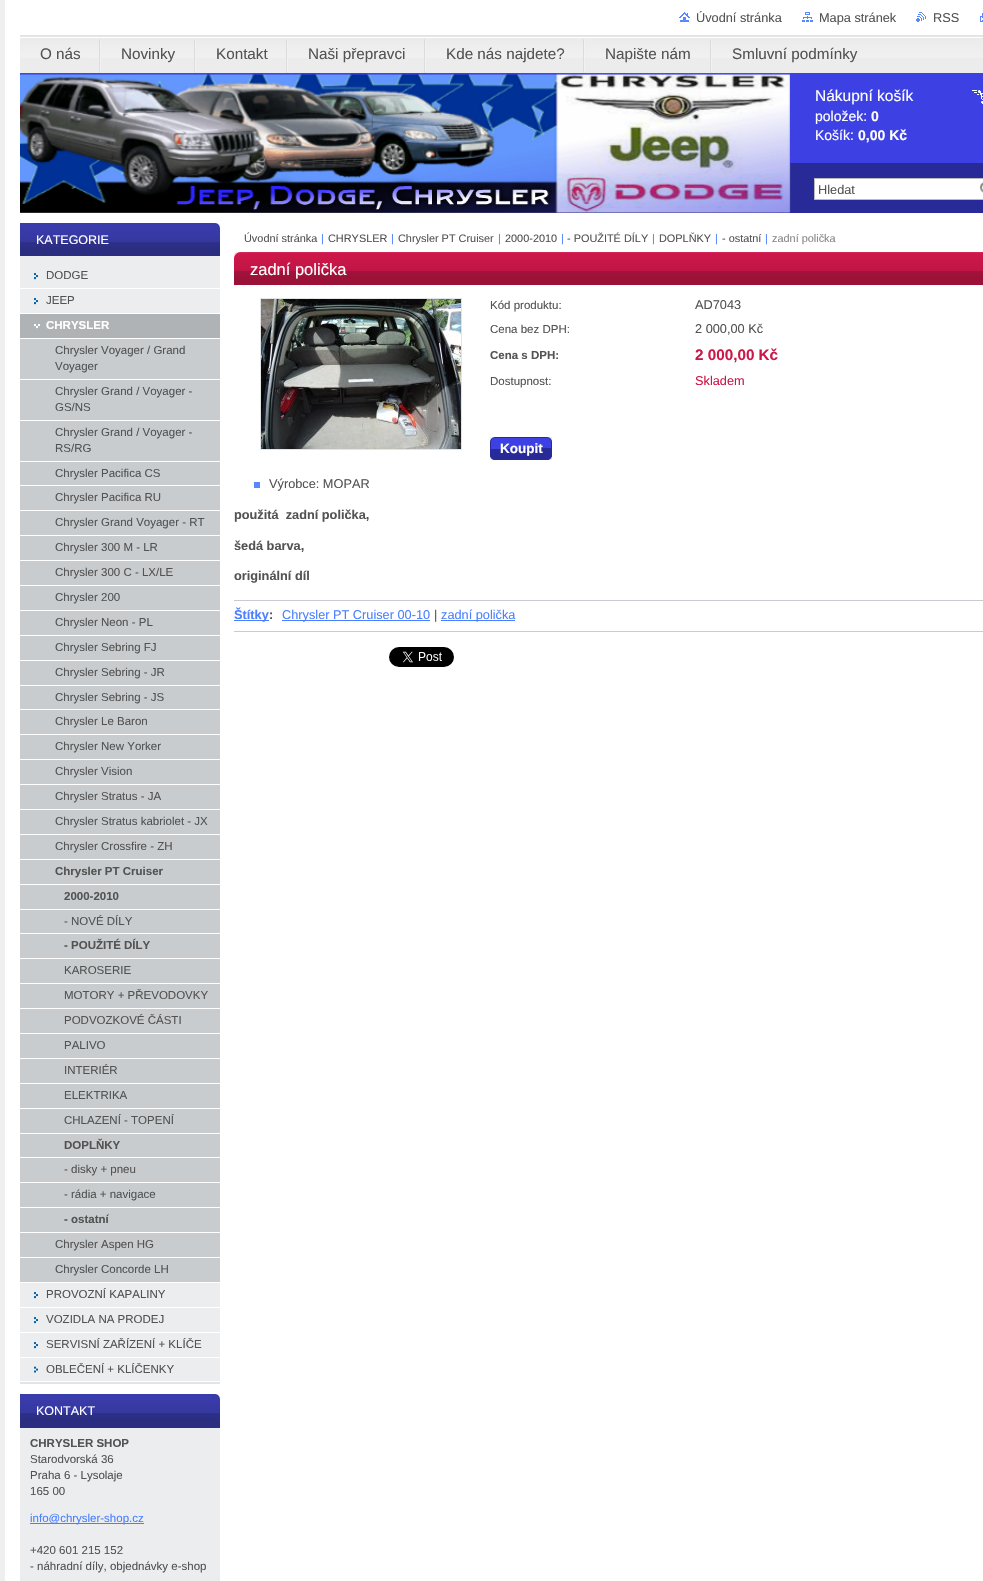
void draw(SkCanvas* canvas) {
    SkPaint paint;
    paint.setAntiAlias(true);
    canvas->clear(0xFFFFFFFF);
    paint.setColor(0xFFEFEFEF);
    canvas->drawRect(SkRect::MakeXYWH(0, 0, 5, 1581), paint);
    canvas->drawImageRect(SkImages::DeferredFromEncodedData(SkData::MakeFromFileName("img1.png")), SkRect::MakeXYWH(679, 12, 11, 10), SkSamplingOptions());
    SkFont font1(fontMgr->matchFamilyStyle("Liberation Sans", SkFontStyle::Normal()), 12.75f);
    font1.setSubpixel(true);
    paint.setColor(0xFF535353);
    canvas->drawString("Úvodní stránka", 696, 22, font1, paint);
    canvas->drawImageRect(SkImages::DeferredFromEncodedData(SkData::MakeFromFileName("img2.png")), SkRect::MakeXYWH(802, 12, 11, 10), SkSamplingOptions());
    canvas->drawString("Mapa stránek", 819, 22, font1, paint);
    canvas->drawImageRect(SkImages::DeferredFromEncodedData(SkData::MakeFromFileName("img3.png")), SkRect::MakeXYWH(916, 12, 10, 10), SkSamplingOptions());
    canvas->drawString("RSS", 933, 22, font1, paint);
    canvas->drawImageRect(SkImages::DeferredFromEncodedData(SkData::MakeFromFileName("img4.png")), SkRect::MakeXYWH(980, 13, 3, 9), SkSamplingOptions());
    paint.setColor(0xFFECECEC);
    canvas->drawRect(SkRect::MakeXYWH(20, 58, 963, 15), paint);
    canvas->drawImageRect(SkImages::DeferredFromEncodedData(SkData::MakeFromFileName("img5.png")), SkRect::MakeXYWH(20, 35, 963, 23), SkSamplingOptions());
    canvas->drawImageRect(SkImages::DeferredFromEncodedData(SkData::MakeFromFileName("img6.png")), SkRect::MakeXYWH(99, 39, 2, 34), SkSamplingOptions());
    SkFont font2(fontMgr->matchFamilyStyle("Liberation Sans", SkFontStyle::Normal()), 15.25f);
    font2.setSubpixel(true);
    paint.setColor(0xFF535353);
    canvas->drawString("O nás", 40, 59, font2, paint);
    canvas->drawImageRect(SkImages::DeferredFromEncodedData(SkData::MakeFromFileName("img6.png")), SkRect::MakeXYWH(194, 39, 2, 34), SkSamplingOptions());
    canvas->drawString("Novinky", 121, 59, font2, paint);
    canvas->drawImageRect(SkImages::DeferredFromEncodedData(SkData::MakeFromFileName("img6.png")), SkRect::MakeXYWH(286, 39, 2, 34), SkSamplingOptions());
    canvas->drawString("Kontakt", 216, 59, font2, paint);
    canvas->drawImageRect(SkImages::DeferredFromEncodedData(SkData::MakeFromFileName("img6.png")), SkRect::MakeXYWH(424, 39, 2, 34), SkSamplingOptions());
    canvas->drawString("Naši přepravci", 308, 59, font2, paint);
    canvas->drawImageRect(SkImages::DeferredFromEncodedData(SkData::MakeFromFileName("img6.png")), SkRect::MakeXYWH(583, 39, 2, 34), SkSamplingOptions());
    canvas->drawString("Kde nás najdete?", 446, 59, font2, paint);
    canvas->drawImageRect(SkImages::DeferredFromEncodedData(SkData::MakeFromFileName("img6.png")), SkRect::MakeXYWH(710, 39, 2, 34), SkSamplingOptions());
    canvas->drawString("Napište nám", 605, 59, font2, paint);
    canvas->drawString("Smluvní podmínky", 732, 59, font2, paint);
    paint.setColor(0xFF3D41E4);
    canvas->drawRect(SkRect::MakeXYWH(20, 73, 963, 140), paint);
    canvas->drawImageRect(SkImages::DeferredFromEncodedData(SkData::MakeFromFileName("img7.png")), SkRect::MakeXYWH(20, 73, 770, 140), SkSamplingOptions());
    canvas->drawImageRect(SkImages::DeferredFromEncodedData(SkData::MakeFromFileName("img8.png")), SkRect::MakeXYWH(972, 90, 11, 14), SkSamplingOptions());
    SkFont font3(fontMgr->matchFamilyStyle("Liberation Sans", SkFontStyle::Normal()), 15.5f);
    font3.setSubpixel(true);
    paint.setColor(0xFFFFFFFF);
    canvas->drawString("Nákupní košík", 815, 101, font3, paint);
    SkFont font4(fontMgr->matchFamilyStyle("Liberation Sans", SkFontStyle::Normal()), 14);
    font4.setSubpixel(true);
    canvas->drawString("položek:", 815, 121, font4, paint);
    SkFont font5(fontMgr->matchFamilyStyle("Liberation Sans", SkFontStyle::Bold()), 14);
    font5.setSubpixel(true);
    canvas->drawString("0", 871, 121, font5, paint);
    canvas->drawString("Košík:", 815, 140, font4, paint);
    canvas->drawString("0,00 Kč", 858, 140, font5, paint);
    paint.setColor(0xFF282B97);
    canvas->drawRect(SkRect::MakeXYWH(790, 163, 193, 50), paint);
    canvas->drawImageRect(SkImages::DeferredFromEncodedData(SkData::MakeFromFileName("img9.png")), SkRect::MakeXYWH(790, 164, 193, 48), SkSamplingOptions());
    paint.setColor(0xFF535353);
    canvas->drawString("Hledat", 818, 194, font1, paint);
    canvas->drawImageRect(SkImages::DeferredFromEncodedData(SkData::MakeFromFileName("img10.png")), SkRect::MakeXYWH(980, 182, 3, 11), SkSamplingOptions());
    paint.setColor(0xFFE2E5E8);
    canvas->drawRect(SkRect::MakeXYWH(20, 1382, 200, 2), paint);
    paint.setColor(0xFFEBEDEF);
    canvas->drawRect(SkRect::MakeXYWH(20, 256, 200, 1125), paint);
    paint.setColor(0xFF2B2D81);
    canvas->drawRect(SkRect::MakeXYWH(20, 247, 200, 9), paint);
    canvas->drawImageRect(SkImages::DeferredFromEncodedData(SkData::MakeFromFileName("img11.png")), SkRect::MakeXYWH(20, 223, 200, 24), SkSamplingOptions());
    SkFont font6(fontMgr->matchFamilyStyle("Liberation Sans", SkFontStyle::Normal()), 12.5f);
    font6.setSubpixel(true);
    paint.setColor(0xFFFFFFFF);
    canvas->drawString("KATEGORIE", 36, 244, font6, paint);
    canvas->drawImageRect(SkImages::DeferredFromEncodedData(SkData::MakeFromFileName("img12.png")), SkRect::MakeXYWH(34, 273, 4, 7), SkSamplingOptions());
    canvas->drawRect(SkRect::MakeXYWH(20, 288, 200, 1), paint);
    SkFont font7(fontMgr->matchFamilyStyle("Liberation Sans", SkFontStyle::Normal()), 11.5f);
    font7.setSubpixel(true);
    paint.setColor(0xFF535353);
    canvas->drawString("DODGE", 46, 279, font7, paint);
    canvas->drawImageRect(SkImages::DeferredFromEncodedData(SkData::MakeFromFileName("img12.png")), SkRect::MakeXYWH(34, 298, 4, 7), SkSamplingOptions());
    paint.setColor(0xFFFFFFFF);
    canvas->drawRect(SkRect::MakeXYWH(20, 313, 200, 1), paint);
    paint.setColor(0xFF535353);
    canvas->drawString("JEEP", 46, 304, font7, paint);
    paint.setColor(0xFFB0B3B5);
    canvas->drawRect(SkRect::MakeXYWH(20, 314, 200, 24), paint);
    canvas->drawImageRect(SkImages::DeferredFromEncodedData(SkData::MakeFromFileName("img13.png")), SkRect::MakeXYWH(34, 324, 6, 5), SkSamplingOptions());
    paint.setColor(0xFFFFFFFF);
    canvas->drawRect(SkRect::MakeXYWH(20, 338, 200, 1), paint);
    SkFont font8(fontMgr->matchFamilyStyle("Liberation Sans", SkFontStyle::Bold()), 11.5f);
    font8.setSubpixel(true);
    canvas->drawString("CHRYSLER", 46, 329, font8, paint);
    paint.setColor(0xFFC9CCCF);
    canvas->drawRect(SkRect::MakeXYWH(20, 339, 200, 943), paint);
    paint.setColor(0xFFFFFFFF);
    canvas->drawRect(SkRect::MakeXYWH(20, 379, 200, 1), paint);
    paint.setColor(0xFF535353);
    canvas->drawString("Chrysler Voyager / Grand", 55, 354, font7, paint);
    canvas->drawString("Voyager", 55, 370, font7, paint);
    paint.setColor(0xFFFFFFFF);
    canvas->drawRect(SkRect::MakeXYWH(20, 420, 200, 1), paint);
    paint.setColor(0xFF535353);
    canvas->drawString("Chrysler Grand / Voyager -", 55, 395, font7, paint);
    canvas->drawString("GS/NS", 55, 411, font7, paint);
    paint.setColor(0xFFFFFFFF);
    canvas->drawRect(SkRect::MakeXYWH(20, 461, 200, 1), paint);
    paint.setColor(0xFF535353);
    canvas->drawString("Chrysler Grand / Voyager -", 55, 436, font7, paint);
    canvas->drawString("RS/RG", 55, 452, font7, paint);
    paint.setColor(0xFFFFFFFF);
    canvas->drawRect(SkRect::MakeXYWH(20, 485, 200, 1), paint);
    paint.setColor(0xFF535353);
    canvas->drawString("Chrysler Pacifica CS", 55, 477, font7, paint);
    paint.setColor(0xFFFFFFFF);
    canvas->drawRect(SkRect::MakeXYWH(20, 510, 200, 1), paint);
    paint.setColor(0xFF535353);
    canvas->drawString("Chrysler Pacifica RU", 55, 501, font7, paint);
    paint.setColor(0xFFFFFFFF);
    canvas->drawRect(SkRect::MakeXYWH(20, 535, 200, 1), paint);
    paint.setColor(0xFF535353);
    canvas->drawString("Chrysler Grand Voyager - RT", 55, 526, font7, paint);
    paint.setColor(0xFFFFFFFF);
    canvas->drawRect(SkRect::MakeXYWH(20, 560, 200, 1), paint);
    paint.setColor(0xFF535353);
    canvas->drawString("Chrysler 300 M - LR", 55, 551, font7, paint);
    paint.setColor(0xFFFFFFFF);
    canvas->drawRect(SkRect::MakeXYWH(20, 585, 200, 1), paint);
    paint.setColor(0xFF535353);
    canvas->drawString("Chrysler 300 C - LX/LE", 55, 576, font7, paint);
    paint.setColor(0xFFFFFFFF);
    canvas->drawRect(SkRect::MakeXYWH(20, 610, 200, 1), paint);
    paint.setColor(0xFF535353);
    canvas->drawString("Chrysler 200", 55, 601, font7, paint);
    paint.setColor(0xFFFFFFFF);
    canvas->drawRect(SkRect::MakeXYWH(20, 635, 200, 1), paint);
    paint.setColor(0xFF535353);
    canvas->drawString("Chrysler Neon - PL", 55, 626, font7, paint);
    paint.setColor(0xFFFFFFFF);
    canvas->drawRect(SkRect::MakeXYWH(20, 660, 200, 1), paint);
    paint.setColor(0xFF535353);
    canvas->drawString("Chrysler Sebring FJ", 55, 651, font7, paint);
    paint.setColor(0xFFFFFFFF);
    canvas->drawRect(SkRect::MakeXYWH(20, 685, 200, 1), paint);
    paint.setColor(0xFF535353);
    canvas->drawString("Chrysler Sebring - JR", 55, 676, font7, paint);
    paint.setColor(0xFFFFFFFF);
    canvas->drawRect(SkRect::MakeXYWH(20, 709, 200, 1), paint);
    paint.setColor(0xFF535353);
    canvas->drawString("Chrysler Sebring - JS", 55, 701, font7, paint);
    paint.setColor(0xFFFFFFFF);
    canvas->drawRect(SkRect::MakeXYWH(20, 734, 200, 1), paint);
    paint.setColor(0xFF535353);
    canvas->drawString("Chrysler Le Baron", 55, 725, font7, paint);
    paint.setColor(0xFFFFFFFF);
    canvas->drawRect(SkRect::MakeXYWH(20, 759, 200, 1), paint);
    paint.setColor(0xFF535353);
    canvas->drawString("Chrysler New Yorker", 55, 750, font7, paint);
    paint.setColor(0xFFFFFFFF);
    canvas->drawRect(SkRect::MakeXYWH(20, 784, 200, 1), paint);
    paint.setColor(0xFF535353);
    canvas->drawString("Chrysler Vision", 55, 775, font7, paint);
    paint.setColor(0xFFFFFFFF);
    canvas->drawRect(SkRect::MakeXYWH(20, 809, 200, 1), paint);
    paint.setColor(0xFF535353);
    canvas->drawString("Chrysler Stratus - JA", 55, 800, font7, paint);
    paint.setColor(0xFFFFFFFF);
    canvas->drawRect(SkRect::MakeXYWH(20, 834, 200, 1), paint);
    paint.setColor(0xFF535353);
    canvas->drawString("Chrysler Stratus kabriolet - JX", 55, 825, font7, paint);
    paint.setColor(0xFFFFFFFF);
    canvas->drawRect(SkRect::MakeXYWH(20, 859, 200, 1), paint);
    paint.setColor(0xFF535353);
    canvas->drawString("Chrysler Crossfire - ZH", 55, 850, font7, paint);
    paint.setColor(0xFFFFFFFF);
    canvas->drawRect(SkRect::MakeXYWH(20, 884, 200, 1), paint);
    paint.setColor(0xFF535353);
    canvas->drawString("Chrysler PT Cruiser", 55, 875, font8, paint);
    paint.setColor(0xFFFFFFFF);
    canvas->drawRect(SkRect::MakeXYWH(20, 909, 200, 1), paint);
    paint.setColor(0xFF535353);
    canvas->drawString("2000-2010", 64, 900, font8, paint);
    paint.setColor(0xFFFFFFFF);
    canvas->drawRect(SkRect::MakeXYWH(20, 933, 200, 1), paint);
    paint.setColor(0xFF535353);
    canvas->drawString("- NOVÉ DÍLY", 64, 925, font7, paint);
    paint.setColor(0xFFFFFFFF);
    canvas->drawRect(SkRect::MakeXYWH(20, 958, 200, 1), paint);
    paint.setColor(0xFF535353);
    canvas->drawString("- POUŽITÉ DÍLY", 64, 949, font8, paint);
    paint.setColor(0xFFFFFFFF);
    canvas->drawRect(SkRect::MakeXYWH(20, 983, 200, 1), paint);
    paint.setColor(0xFF535353);
    canvas->drawString("KAROSERIE", 64, 974, font7, paint);
    paint.setColor(0xFFFFFFFF);
    canvas->drawRect(SkRect::MakeXYWH(20, 1008, 200, 1), paint);
    paint.setColor(0xFF535353);
    canvas->drawString("MOTORY + PŘEVODOVKY", 64, 999, font7, paint);
    paint.setColor(0xFFFFFFFF);
    canvas->drawRect(SkRect::MakeXYWH(20, 1033, 200, 1), paint);
    paint.setColor(0xFF535353);
    canvas->drawString("PODVOZKOVÉ ČÁSTI", 64, 1024, font7, paint);
    paint.setColor(0xFFFFFFFF);
    canvas->drawRect(SkRect::MakeXYWH(20, 1058, 200, 1), paint);
    paint.setColor(0xFF535353);
    canvas->drawString("PALIVO", 64, 1049, font7, paint);
    paint.setColor(0xFFFFFFFF);
    canvas->drawRect(SkRect::MakeXYWH(20, 1083, 200, 1), paint);
    paint.setColor(0xFF535353);
    canvas->drawString("INTERIÉR", 64, 1074, font7, paint);
    paint.setColor(0xFFFFFFFF);
    canvas->drawRect(SkRect::MakeXYWH(20, 1108, 200, 1), paint);
    paint.setColor(0xFF535353);
    canvas->drawString("ELEKTRIKA", 64, 1099, font7, paint);
    paint.setColor(0xFFFFFFFF);
    canvas->drawRect(SkRect::MakeXYWH(20, 1133, 200, 1), paint);
    paint.setColor(0xFF535353);
    canvas->drawString("CHLAZENÍ - TOPENÍ", 64, 1124, font7, paint);
    paint.setColor(0xFFFFFFFF);
    canvas->drawRect(SkRect::MakeXYWH(20, 1157, 200, 1), paint);
    paint.setColor(0xFF535353);
    canvas->drawString("DOPLŇKY", 64, 1149, font8, paint);
    paint.setColor(0xFFFFFFFF);
    canvas->drawRect(SkRect::MakeXYWH(20, 1182, 200, 1), paint);
    paint.setColor(0xFF535353);
    canvas->drawString("- disky + pneu", 64, 1173, font7, paint);
    paint.setColor(0xFFFFFFFF);
    canvas->drawRect(SkRect::MakeXYWH(20, 1207, 200, 1), paint);
    paint.setColor(0xFF535353);
    canvas->drawString("- rádia + navigace", 64, 1198, font7, paint);
    paint.setColor(0xFFFFFFFF);
    canvas->drawRect(SkRect::MakeXYWH(20, 1232, 200, 1), paint);
    paint.setColor(0xFF535353);
    canvas->drawString("- ostatní", 64, 1223, font8, paint);
    paint.setColor(0xFFFFFFFF);
    canvas->drawRect(SkRect::MakeXYWH(20, 1257, 200, 1), paint);
    paint.setColor(0xFF535353);
    canvas->drawString("Chrysler Aspen HG", 55, 1248, font7, paint);
    paint.setColor(0xFFFFFFFF);
    canvas->drawRect(SkRect::MakeXYWH(20, 1282, 200, 1), paint);
    paint.setColor(0xFF535353);
    canvas->drawString("Chrysler Concorde LH", 55, 1273, font7, paint);
    canvas->drawImageRect(SkImages::DeferredFromEncodedData(SkData::MakeFromFileName("img12.png")), SkRect::MakeXYWH(34, 1292, 4, 7), SkSamplingOptions());
    paint.setColor(0xFFFFFFFF);
    canvas->drawRect(SkRect::MakeXYWH(20, 1307, 200, 1), paint);
    paint.setColor(0xFF535353);
    canvas->drawString("PROVOZNÍ KAPALINY", 46, 1298, font7, paint);
    canvas->drawImageRect(SkImages::DeferredFromEncodedData(SkData::MakeFromFileName("img12.png")), SkRect::MakeXYWH(34, 1317, 4, 7), SkSamplingOptions());
    paint.setColor(0xFFFFFFFF);
    canvas->drawRect(SkRect::MakeXYWH(20, 1332, 200, 1), paint);
    paint.setColor(0xFF535353);
    canvas->drawString("VOZIDLA NA PRODEJ", 46, 1323, font7, paint);
    canvas->drawImageRect(SkImages::DeferredFromEncodedData(SkData::MakeFromFileName("img12.png")), SkRect::MakeXYWH(34, 1342, 4, 7), SkSamplingOptions());
    paint.setColor(0xFFFFFFFF);
    canvas->drawRect(SkRect::MakeXYWH(20, 1357, 200, 1), paint);
    paint.setColor(0xFF535353);
    canvas->drawString("SERVISNÍ ZAŘÍZENÍ + KLÍČE", 46, 1348, font7, paint);
    canvas->drawImageRect(SkImages::DeferredFromEncodedData(SkData::MakeFromFileName("img14.png")), SkRect::MakeXYWH(34, 1366, 4, 7), SkSamplingOptions());
    canvas->drawString("OBLEČENÍ + KLÍČENKY", 46, 1373, font7, paint);
    paint.setColor(0xFFEBEDEF);
    canvas->drawRect(SkRect::MakeXYWH(20, 1428, 200, 153), paint);
    paint.setColor(0xFF2B2D81);
    canvas->drawRect(SkRect::MakeXYWH(20, 1418, 200, 10), paint);
    canvas->drawImageRect(SkImages::DeferredFromEncodedData(SkData::MakeFromFileName("img11.png")), SkRect::MakeXYWH(20, 1394, 200, 24), SkSamplingOptions());
    paint.setColor(0xFFFFFFFF);
    canvas->drawString("KONTAKT", 36, 1415, font6, paint);
    paint.setColor(0xFF535353);
    canvas->drawString("CHRYSLER SHOP", 30, 1447, font8, paint);
    canvas->drawString("Starodvorská 36", 30, 1463, font7, paint);
    canvas->drawString("Praha 6 - Lysolaje", 30, 1479, font7, paint);
    canvas->drawString("165 00", 30, 1495, font7, paint);
    paint.setColor(0xFF4B7FFF);
    canvas->drawRect(SkRect::MakeXYWH(30, 1523, 46, 1), paint);
    paint.setColor(0xFF4B80FF);
    canvas->drawString("info@chr", 30, 1522, font7, paint);
    paint.setColor(0xFF4B7FFF);
    canvas->drawRect(SkRect::MakeXYWH(76, 1523, 68, 1), paint);
    paint.setColor(0xFF4B80FF);
    canvas->drawString("ysler-shop.cz", 76, 1522, font7, paint);
    paint.setColor(0xFF535353);
    canvas->drawString("+420 601 215 152", 30, 1554, font7, paint);
    canvas->drawString("- náhradní díly, objednávky e-shop", 30, 1570, font7, paint);
    SkFont font9(fontMgr->matchFamilyStyle("Liberation Sans", SkFontStyle::Normal()), 10.9f);
    font9.setSubpixel(true);
    canvas->drawString("Úvodní stránka", 244, 242, font9, paint);
    paint.setColor(0xFF4B80FF);
    canvas->drawString("|", 321, 242, font9, paint);
    paint.setColor(0xFF535353);
    canvas->drawString("CHRYSLER", 328, 242, font9, paint);
    paint.setColor(0xFF4B80FF);
    canvas->drawString("|", 391, 242, font9, paint);
    paint.setColor(0xFF535353);
    canvas->drawString("Chrysler PT Cruiser", 398, 242, font9, paint);
    paint.setColor(0xFF4B80FF);
    canvas->drawString("|", 498, 242, font9, paint);
    paint.setColor(0xFF535353);
    canvas->drawString("2000-2010", 505, 242, font9, paint);
    paint.setColor(0xFF4B80FF);
    canvas->drawString("|", 561, 242, font9, paint);
    paint.setColor(0xFF535353);
    canvas->drawString("- POUŽITÉ DÍLY", 567, 242, font9, paint);
    paint.setColor(0xFF4B80FF);
    canvas->drawString("|", 652, 242, font9, paint);
    paint.setColor(0xFF535353);
    canvas->drawString("DOPLŇKY", 659, 242, font9, paint);
    paint.setColor(0xFF4B80FF);
    canvas->drawString("|", 715, 242, font9, paint);
    paint.setColor(0xFF535353);
    canvas->drawString("- ostatní", 722, 242, font9, paint);
    paint.setColor(0xFF4B80FF);
    canvas->drawString("|", 765, 242, font9, paint);
    paint.setColor(0xFF878787);
    canvas->drawString("zadní polička", 772, 242, font9, paint);
    paint.setColor(0xFF9B1137);
    canvas->drawRect(SkRect::MakeXYWH(234, 276, 749, 9), paint);
    canvas->drawImageRect(SkImages::DeferredFromEncodedData(SkData::MakeFromFileName("img15.png")), SkRect::MakeXYWH(234, 252, 749, 24), SkSamplingOptions());
    SkFont font10(fontMgr->matchFamilyStyle("Liberation Sans", SkFontStyle::Normal()), 16.5f);
    font10.setSubpixel(true);
    paint.setColor(0xFFFFFFFF);
    canvas->drawString("zadní polička", 250, 275, font10, paint);
    paint.setColor(0xFF535353);
    canvas->drawString("Kód produktu:", 490, 309, font7, paint);
    canvas->drawString("AD7043", 695, 309, font1, paint);
    canvas->drawString("Cena bez DPH:", 490, 333, font7, paint);
    canvas->drawString("2 000,00 Kč", 695, 333, font1, paint);
    canvas->drawString("Cena s DPH:", 490, 359, font8, paint);
    SkFont font11(fontMgr->matchFamilyStyle("Liberation Sans", SkFontStyle::Bold()), 15.25f);
    font11.setSubpixel(true);
    paint.setColor(0xFFCC1749);
    canvas->drawString("2 000,00 Kč", 695, 360, font11, paint);
    paint.setColor(0xFF535353);
    canvas->drawString("Dostupnost:", 490, 385, font7, paint);
    paint.setColor(0xFFCC1749);
    canvas->drawString("Skladem", 695, 385, font1, paint);
    canvas->drawImageRect(SkImages::DeferredFromEncodedData(SkData::MakeFromFileName("img16.png")), SkRect::MakeXYWH(490, 437, 57, 12), SkSamplingOptions());
    canvas->drawImageRect(SkImages::DeferredFromEncodedData(SkData::MakeFromFileName("img17.png")), SkRect::MakeXYWH(547, 437, 5, 11), SkSamplingOptions());
    canvas->drawImageRect(SkImages::DeferredFromEncodedData(SkData::MakeFromFileName("img18.png")), SkRect::MakeXYWH(490, 449, 43, 11), SkSamplingOptions());
    canvas->drawImageRect(SkImages::DeferredFromEncodedData(SkData::MakeFromFileName("img19.png")), SkRect::MakeXYWH(532, 448, 20, 12), SkSamplingOptions());
    SkFont font12(fontMgr->matchFamilyStyle("Liberation Sans", SkFontStyle::Bold()), 13.5f);
    font12.setSubpixel(true);
    paint.setColor(0xFFFFFFFF);
    canvas->drawString("Koupit", 500, 453, font12, paint);
    paint.setStyle(SkPaint::kStroke_Style);
    paint.setStrokeWidth(1);
    paint.setColor(0xFFE2E5E8);
    canvas->drawRect(SkRect::MakeXYWH(260.5f, 298.5f, 201, 151), paint);
    canvas->drawImageRect(SkImages::DeferredFromEncodedData(SkData::MakeFromFileName("img20.png")), SkRect::MakeXYWH(261, 299, 200, 150), SkSamplingOptions());
    paint.setStyle(SkPaint::kFill_Style);
    paint.setColor(0xFF5788FF);
    canvas->drawRect(SkRect::MakeXYWH(254, 482, 6, 6), paint);
    paint.setColor(0xFF535353);
    canvas->drawString("Výrobce: MOPAR", 269, 488, font1, paint);
    SkFont font13(fontMgr->matchFamilyStyle("Liberation Sans", SkFontStyle::Bold()), 12.75f);
    font13.setSubpixel(true);
    canvas->drawString("použitá  zadní polička,", 234, 519, font13, paint);
    canvas->drawString("šedá barva,", 234, 550, font13, paint);
    canvas->drawString("originální díl", 234, 580, font13, paint);
    paint.setColor(0xFFC8CBCF);
    canvas->drawRect(SkRect::MakeXYWH(234, 600, 749, 1), paint);
    canvas->drawRect(SkRect::MakeXYWH(234, 631, 749, 1), paint);
    paint.setColor(0xFF4B7FFF);
    canvas->drawRect(SkRect::MakeXYWH(234, 620, 35, 1), paint);
    paint.setColor(0xFF4B80FF);
    canvas->drawString("Štítky", 234, 619, font13, paint);
    paint.setColor(0xFF535353);
    canvas->drawString(":", 269, 619, font13, paint);
    paint.setColor(0xFF4B7FFF);
    canvas->drawRect(SkRect::MakeXYWH(282, 620, 148, 1), paint);
    paint.setColor(0xFF4B80FF);
    canvas->drawString("Chrysler PT Cruiser 00-10", 282, 619, font1, paint);
    paint.setColor(0xFF535353);
    canvas->drawString("|", 434, 619, font1, paint);
    paint.setColor(0xFF4B7FFF);
    canvas->drawRect(SkRect::MakeXYWH(441, 620, 74, 1), paint);
    paint.setColor(0xFF4B80FF);
    canvas->drawString("zadní polička", 441, 619, font1, paint);
    canvas->drawImageRect(SkImages::DeferredFromEncodedData(SkData::MakeFromFileName("img21.png")), SkRect::MakeXYWH(389, 647, 65, 20), SkSamplingOptions());
}
